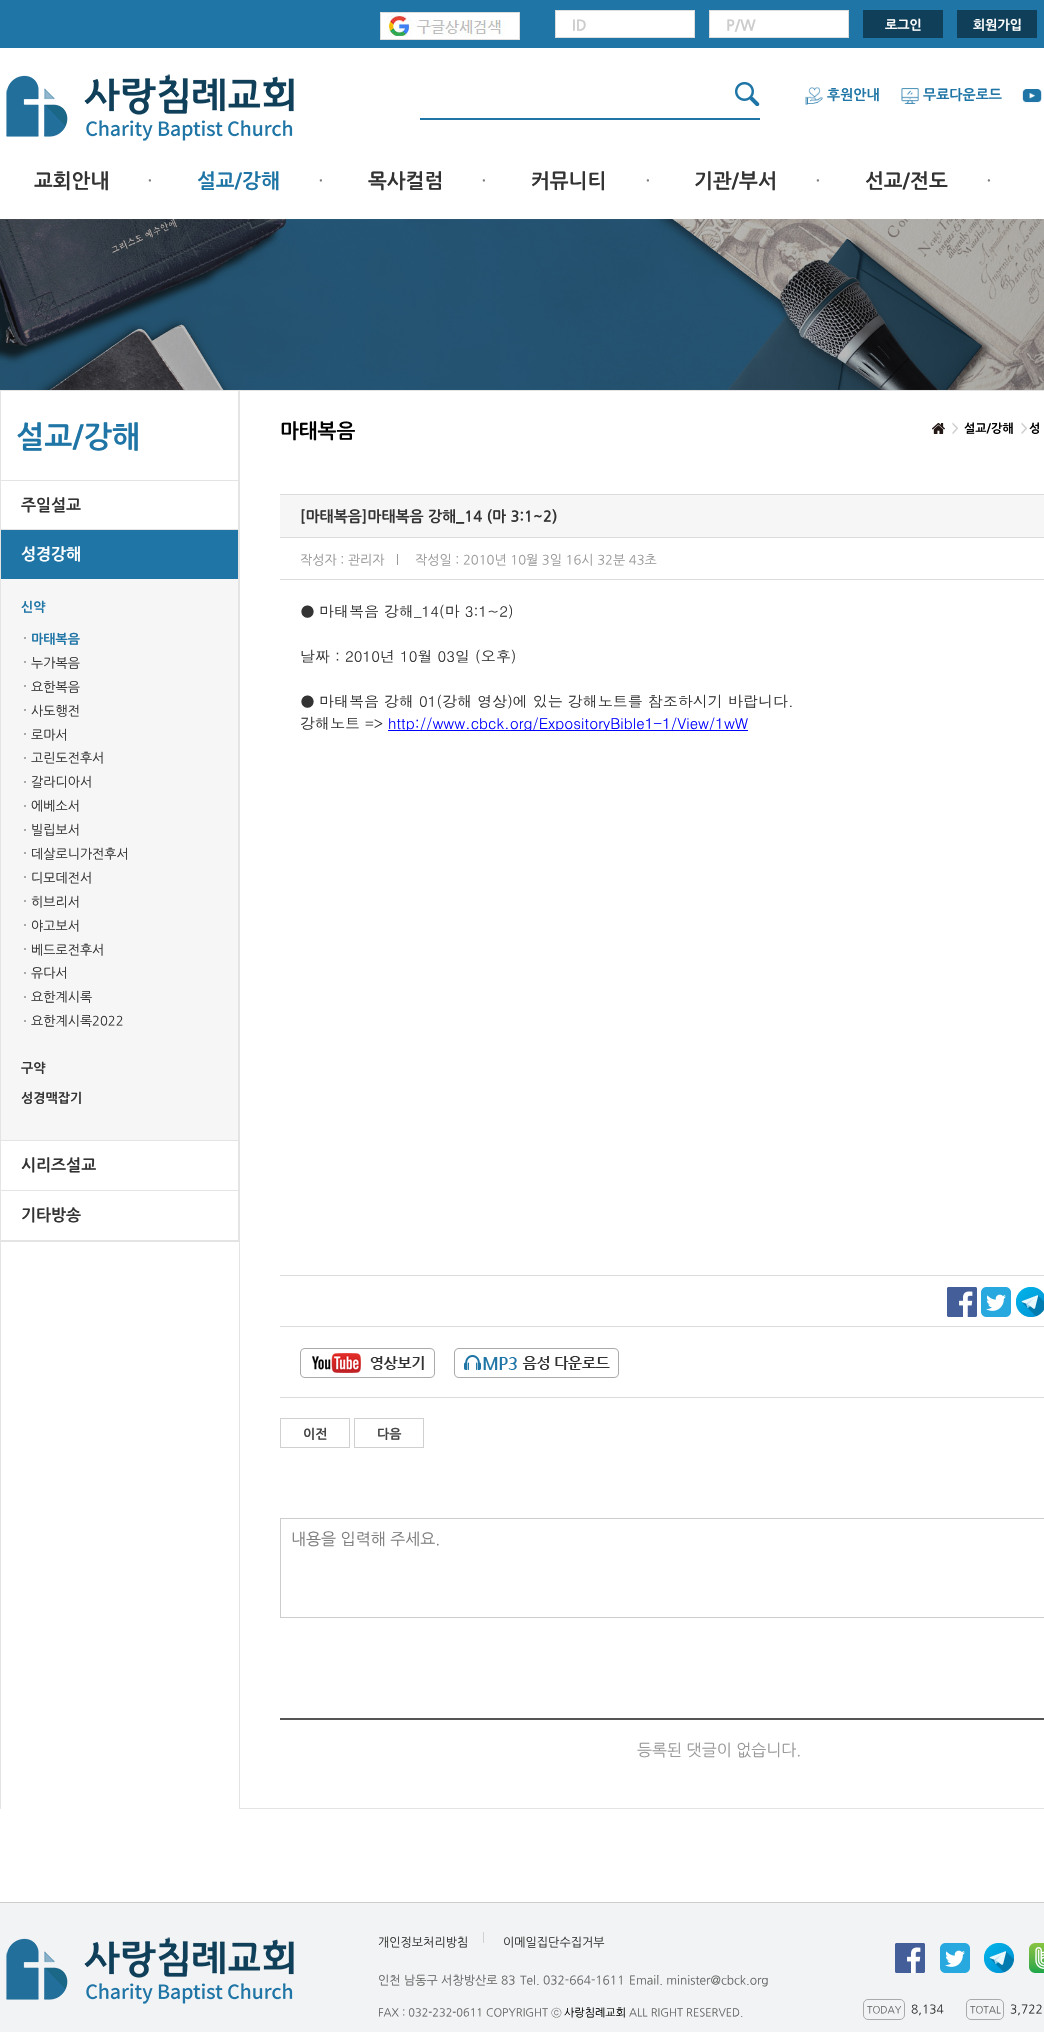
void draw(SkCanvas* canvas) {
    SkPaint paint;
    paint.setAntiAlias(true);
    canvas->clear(0xFFFFFFFF);
    paint.setColor(0xFF1E75A6);
    canvas->drawRect(SkRect::MakeXYWH(0, 0, 1044, 48), paint);
    canvas->drawImageRect(SkImages::DeferredFromEncodedData(SkData::MakeFromFileName("img1.png")), SkRect::MakeXYWH(380, 12, 140, 28), SkSamplingOptions());
    paint.setColor(0xFFFFFFFF);
    canvas->drawRect(SkRect::MakeXYWH(555.5f, 10.5f, 139, 27), paint);
    paint.setStyle(SkPaint::kStroke_Style);
    paint.setStrokeWidth(1);
    paint.setColor(0xFFDDDDDD);
    canvas->drawRect(SkRect::MakeXYWH(555.5f, 10.5f, 139, 27), paint);
    SkFont font1(fontMgr->matchFamilyStyle("NanumGothic", SkFontStyle::Bold()), 15);
    font1.setSubpixel(true);
    paint.setStyle(SkPaint::kFill_Style);
    paint.setColor(0xFFCCCCCC);
    canvas->drawString("ID", 572, 30, font1, paint);
    paint.setColor(0xFFFFFFFF);
    canvas->drawRect(SkRect::MakeXYWH(709.5f, 10.5f, 139, 27), paint);
    paint.setStyle(SkPaint::kStroke_Style);
    paint.setColor(0xFFDDDDDD);
    canvas->drawRect(SkRect::MakeXYWH(709.5f, 10.5f, 139, 27), paint);
    paint.setStyle(SkPaint::kFill_Style);
    paint.setColor(0xFFCCCCCC);
    canvas->drawString("P/W", 726, 30, font1, paint);
    paint.setColor(0xFF103F5A);
    canvas->drawRect(SkRect::MakeXYWH(863, 10, 80, 28), paint);
    SkFont font2(fontMgr->matchFamilyStyle("NanumGothic", SkFontStyle::Bold()), 13);
    font2.setSubpixel(true);
    paint.setColor(0xFFFFFFFF);
    canvas->drawString("로그인", 885, 29, font2, paint);
    paint.setColor(0xFF103F5A);
    canvas->drawRect(SkRect::MakeXYWH(957, 10, 80, 28), paint);
    paint.setColor(0xFFFFFFFF);
    canvas->drawString("회원가입", 973, 29, font2, paint);
    canvas->drawImageRect(SkImages::DeferredFromEncodedData(SkData::MakeFromFileName("img2.png")), SkRect::MakeXYWH(6, 74, 288, 67), SkSamplingOptions());
    canvas->drawImageRect(SkImages::DeferredFromEncodedData(SkData::MakeFromFileName("img3.png")), SkRect::MakeXYWH(735, 82, 25, 24), SkSamplingOptions());
    paint.setColor(0xFF1E75A6);
    canvas->drawRect(SkRect::MakeXYWH(420, 118, 340, 2), paint);
    canvas->drawImageRect(SkImages::DeferredFromEncodedData(SkData::MakeFromFileName("img4.png")), SkRect::MakeXYWH(805, 87, 18, 18), SkSamplingOptions());
    SkFont font3(fontMgr->matchFamilyStyle("NanumGothic", SkFontStyle::Bold()), 14);
    font3.setSubpixel(true);
    canvas->drawString("후원안내", 827, 99, font3, paint);
    canvas->drawImageRect(SkImages::DeferredFromEncodedData(SkData::MakeFromFileName("img5.png")), SkRect::MakeXYWH(901, 88, 18, 16), SkSamplingOptions());
    canvas->drawString("무료다운로드", 923, 99, font3, paint);
    canvas->drawImageRect(SkImages::DeferredFromEncodedData(SkData::MakeFromFileName("img6.png")), SkRect::MakeXYWH(1022, 89, 20, 14), SkSamplingOptions());
    SkFont font4(fontMgr->matchFamilyStyle("NanumGothic", SkFontStyle::Bold()), 20);
    font4.setSubpixel(true);
    paint.setColor(0xFF333333);
    canvas->drawString("교회안내", 34, 187, font4, paint);
    SkFont font5(fontMgr->matchFamilyStyle("NanumGothic", SkFontStyle::Normal()), 20);
    font5.setSubpixel(true);
    paint.setColor(0xFF7D7D7D);
    canvas->drawString("·", 147, 187, font5, paint);
    paint.setColor(0xFF1E75A6);
    canvas->drawString("설교/강해", 197, 187, font4, paint);
    paint.setColor(0xFF7D7D7D);
    canvas->drawString("·", 318, 187, font5, paint);
    paint.setColor(0xFF333333);
    canvas->drawString("목사컬럼", 368, 187, font4, paint);
    paint.setColor(0xFF7D7D7D);
    canvas->drawString("·", 481, 187, font5, paint);
    paint.setColor(0xFF333333);
    canvas->drawString("커뮤니티", 531, 187, font4, paint);
    paint.setColor(0xFF7D7D7D);
    canvas->drawString("·", 645, 187, font5, paint);
    paint.setColor(0xFF333333);
    canvas->drawString("기관/부서", 694, 187, font4, paint);
    paint.setColor(0xFF7D7D7D);
    canvas->drawString("·", 815, 187, font5, paint);
    paint.setColor(0xFF333333);
    canvas->drawString("선교/전도", 865, 187, font4, paint);
    paint.setColor(0xFF7D7D7D);
    canvas->drawString("·", 986, 187, font5, paint);
    canvas->drawImageRect(SkImages::DeferredFromEncodedData(SkData::MakeFromFileName("img7.png")), SkRect::MakeXYWH(0, 219, 1044, 171), SkSamplingOptions());
    paint.setColor(0xFFE4E4E4);
    canvas->drawRect(SkRect::MakeXYWH(0, 390, 1, 1419), paint);
    canvas->drawRect(SkRect::MakeXYWH(1, 390, 238, 1), paint);
    canvas->drawRect(SkRect::MakeXYWH(238, 390, 1, 852), paint);
    canvas->drawRect(SkRect::MakeXYWH(1, 1241, 238, 1), paint);
    SkFont font6(fontMgr->matchFamilyStyle("NanumGothic", SkFontStyle::Bold()), 30);
    font6.setSubpixel(true);
    paint.setColor(0xFF1E75A6);
    canvas->drawString("설교/강해", 16, 446, font6, paint);
    paint.setColor(0xFFE4E4E4);
    canvas->drawRect(SkRect::MakeXYWH(1, 480, 237, 1), paint);
    canvas->drawRect(SkRect::MakeXYWH(1, 529, 237, 1), paint);
    SkFont font7(fontMgr->matchFamilyStyle("NanumGothic", SkFontStyle::Bold()), 16);
    font7.setSubpixel(true);
    paint.setColor(0xFF333333);
    canvas->drawString("주일설교", 21, 510, font7, paint);
    paint.setColor(0xFF1E75A6);
    canvas->drawRect(SkRect::MakeXYWH(1, 530, 237, 49), paint);
    paint.setColor(0xFFE4E4E4);
    canvas->drawRect(SkRect::MakeXYWH(1, 1140, 237, 1), paint);
    paint.setColor(0xFFFFFFFF);
    canvas->drawString("성경강해", 21, 559, font7, paint);
    paint.setColor(0xFFF6F6F6);
    canvas->drawRect(SkRect::MakeXYWH(1, 579, 237, 561), paint);
    paint.setColor(0xFF1E75A6);
    canvas->drawString("신약", 21, 611, font2, paint);
    paint.setColor(0xFFAAAAAA);
    canvas->drawRect(SkRect::MakeXYWH(24, 637, 2, 2), paint);
    paint.setColor(0xFF1E75A6);
    canvas->drawString("마태복음", 31, 643, font2, paint);
    paint.setColor(0xFFAAAAAA);
    canvas->drawRect(SkRect::MakeXYWH(24, 661, 2, 2), paint);
    SkFont font8(fontMgr->matchFamilyStyle("NanumGothic", SkFontStyle::Normal()), 13);
    font8.setSubpixel(true);
    paint.setColor(0xFF333333);
    canvas->drawString("누가복음", 31, 667, font8, paint);
    paint.setColor(0xFFAAAAAA);
    canvas->drawRect(SkRect::MakeXYWH(24, 685, 2, 2), paint);
    paint.setColor(0xFF333333);
    canvas->drawString("요한복음", 31, 691, font8, paint);
    paint.setColor(0xFFAAAAAA);
    canvas->drawRect(SkRect::MakeXYWH(24, 709, 2, 2), paint);
    paint.setColor(0xFF333333);
    canvas->drawString("사도행전", 31, 715, font8, paint);
    paint.setColor(0xFFAAAAAA);
    canvas->drawRect(SkRect::MakeXYWH(24, 733, 2, 2), paint);
    paint.setColor(0xFF333333);
    canvas->drawString("로마서", 31, 739, font8, paint);
    paint.setColor(0xFFAAAAAA);
    canvas->drawRect(SkRect::MakeXYWH(24, 757, 2, 2), paint);
    paint.setColor(0xFF333333);
    canvas->drawString("고린도전후서", 31, 762, font8, paint);
    paint.setColor(0xFFAAAAAA);
    canvas->drawRect(SkRect::MakeXYWH(24, 781, 2, 2), paint);
    paint.setColor(0xFF333333);
    canvas->drawString("갈라디아서", 31, 786, font8, paint);
    paint.setColor(0xFFAAAAAA);
    canvas->drawRect(SkRect::MakeXYWH(24, 805, 2, 2), paint);
    paint.setColor(0xFF333333);
    canvas->drawString("에베소서", 31, 810, font8, paint);
    paint.setColor(0xFFAAAAAA);
    canvas->drawRect(SkRect::MakeXYWH(24, 829, 2, 2), paint);
    paint.setColor(0xFF333333);
    canvas->drawString("빌립보서", 31, 834, font8, paint);
    paint.setColor(0xFFAAAAAA);
    canvas->drawRect(SkRect::MakeXYWH(24, 852, 2, 2), paint);
    paint.setColor(0xFF333333);
    canvas->drawString("데살로니가전후서", 31, 858, font8, paint);
    paint.setColor(0xFFAAAAAA);
    canvas->drawRect(SkRect::MakeXYWH(24, 876, 2, 2), paint);
    paint.setColor(0xFF333333);
    canvas->drawString("디모데전서", 31, 882, font8, paint);
    paint.setColor(0xFFAAAAAA);
    canvas->drawRect(SkRect::MakeXYWH(24, 900, 2, 2), paint);
    paint.setColor(0xFF333333);
    canvas->drawString("히브리서", 31, 906, font8, paint);
    paint.setColor(0xFFAAAAAA);
    canvas->drawRect(SkRect::MakeXYWH(24, 924, 2, 2), paint);
    paint.setColor(0xFF333333);
    canvas->drawString("야고보서", 31, 930, font8, paint);
    paint.setColor(0xFFAAAAAA);
    canvas->drawRect(SkRect::MakeXYWH(24, 948, 2, 2), paint);
    paint.setColor(0xFF333333);
    canvas->drawString("베드로전후서", 31, 954, font8, paint);
    paint.setColor(0xFFAAAAAA);
    canvas->drawRect(SkRect::MakeXYWH(24, 972, 2, 2), paint);
    paint.setColor(0xFF333333);
    canvas->drawString("유다서", 31, 977, font8, paint);
    paint.setColor(0xFFAAAAAA);
    canvas->drawRect(SkRect::MakeXYWH(24, 996, 2, 2), paint);
    paint.setColor(0xFF333333);
    canvas->drawString("요한계시록", 31, 1001, font8, paint);
    paint.setColor(0xFFAAAAAA);
    canvas->drawRect(SkRect::MakeXYWH(24, 1020, 2, 2), paint);
    paint.setColor(0xFF333333);
    canvas->drawString("요한계시록2022", 31, 1025, font8, paint);
    canvas->drawString("구약", 21, 1072, font2, paint);
    canvas->drawString("성경맥잡기", 21, 1102, font2, paint);
    paint.setColor(0xFFE4E4E4);
    canvas->drawRect(SkRect::MakeXYWH(1, 1190, 237, 1), paint);
    paint.setColor(0xFF333333);
    canvas->drawString("시리즈설교", 21, 1170, font7, paint);
    paint.setColor(0xFFE4E4E4);
    canvas->drawRect(SkRect::MakeXYWH(1, 1240, 237, 1), paint);
    paint.setColor(0xFF333333);
    canvas->drawString("기타방송", 21, 1220, font7, paint);
    paint.setStyle(SkPaint::kStroke_Style);
    paint.setColor(0xFFE4E4E4);
    canvas->drawRect(SkRect::MakeXYWH(239.5f, 390.5f, 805, 1418), paint);
    paint.setStyle(SkPaint::kFill_Style);
    paint.setColor(0xFF000000);
    canvas->drawString("마태복음", 280, 437, font4, paint);
    canvas->drawImageRect(SkImages::DeferredFromEncodedData(SkData::MakeFromFileName("img8.png")), SkRect::MakeXYWH(932, 423, 13, 11), SkSamplingOptions());
    SkFont font9(fontMgr->matchFamilyStyle("NanumGothic", SkFontStyle::Bold()), 12);
    font9.setSubpixel(true);
    paint.setColor(0xFFCCCCCC);
    canvas->drawString(">", 952, 432, font9, paint);
    paint.setColor(0xFF000000);
    canvas->drawString("설교/강해", 964, 432, font9, paint);
    paint.setColor(0xFFCCCCCC);
    canvas->drawString(">", 1021, 432, font9, paint);
    paint.setColor(0xFF000000);
    canvas->drawString("성", 1029, 432, font9, paint);
    paint.setColor(0xFFF6F6F6);
    canvas->drawRect(SkRect::MakeXYWH(280, 495, 764, 42), paint);
    paint.setColor(0xFFDBDBDB);
    canvas->drawRect(SkRect::MakeXYWH(280, 494, 764, 1), paint);
    canvas->drawRect(SkRect::MakeXYWH(280, 537, 764, 1), paint);
    paint.setColor(0xFF333333);
    canvas->drawString("[마태복음]마태복음 강해_14 (마 3:1~2)", 300, 521, font1, paint);
    paint.setColor(0xFFDBDBDB);
    canvas->drawRect(SkRect::MakeXYWH(280, 579, 764, 1), paint);
    paint.setColor(0xFF999999);
    canvas->drawString("작성자 : 관리자", 300, 564, font8, paint);
    canvas->drawRect(SkRect::MakeXYWH(397, 554, 1, 11), paint);
    canvas->drawString("작성일 : 2010년 10월 3일 16시 32분 43초", 415, 564, font8, paint);
    paint.setColor(0xFFDBDBDB);
    canvas->drawRect(SkRect::MakeXYWH(280, 1275, 764, 1), paint);
    SkFont font10(fontMgr->matchFamilyStyle("Dotum", SkFontStyle::Normal()), 15);
    font10.setSubpixel(true);
    paint.setColor(0xFF333333);
    canvas->drawString("● 마태복음 강해_14(마 3:1~2)", 300, 617, font10, paint);
    canvas->drawString("날짜 : 2010년 10월 03일 (오후)", 300, 662, font10, paint);
    canvas->drawString("● 마태복음 강해 01(강해 영상)에 있는 강해노트를 참조하시기 바랍니다.", 300, 707, font10, paint);
    canvas->drawString("강해노트 =>", 300, 729, font10, paint);
    paint.setColor(0xFF0000FF);
    canvas->drawRect(SkRect::MakeXYWH(388, 730, 360, 1), paint);
    canvas->drawString("http://www.cbck.org/ExpositoryBible1-1/View/1wW", 388, 729, font10, paint);
    paint.setColor(0xFFDBDBDB);
    canvas->drawRect(SkRect::MakeXYWH(280, 1326, 764, 1), paint);
    canvas->drawImageRect(SkImages::DeferredFromEncodedData(SkData::MakeFromFileName("img9.png")), SkRect::MakeXYWH(947, 1287, 30, 30), SkSamplingOptions());
    canvas->drawImageRect(SkImages::DeferredFromEncodedData(SkData::MakeFromFileName("img10.png")), SkRect::MakeXYWH(981, 1287, 30, 30), SkSamplingOptions());
    canvas->drawImageRect(SkImages::DeferredFromEncodedData(SkData::MakeFromFileName("img11.png")), SkRect::MakeXYWH(1016, 1287, 28, 30), SkSamplingOptions());
    canvas->drawRect(SkRect::MakeXYWH(280, 1397, 764, 1), paint);
    canvas->drawImageRect(SkImages::DeferredFromEncodedData(SkData::MakeFromFileName("img12.png")), SkRect::MakeXYWH(300, 1348, 135, 30), SkSamplingOptions());
    canvas->drawImageRect(SkImages::DeferredFromEncodedData(SkData::MakeFromFileName("img13.png")), SkRect::MakeXYWH(454, 1348, 165, 30), SkSamplingOptions());
    paint.setStyle(SkPaint::kStroke_Style);
    paint.setColor(0xFFD0D0D0);
    canvas->drawRect(SkRect::MakeXYWH(280.5f, 1418.5f, 69, 29), paint);
    paint.setStyle(SkPaint::kFill_Style);
    paint.setColor(0xFF444444);
    canvas->drawString("이전", 303, 1438, font2, paint);
    paint.setStyle(SkPaint::kStroke_Style);
    paint.setColor(0xFFD0D0D0);
    canvas->drawRect(SkRect::MakeXYWH(354.5f, 1418.5f, 69, 29), paint);
    paint.setStyle(SkPaint::kFill_Style);
    paint.setColor(0xFF444444);
    canvas->drawString("다음", 377, 1438, font2, paint);
    paint.setStyle(SkPaint::kStroke_Style);
    paint.setColor(0xFFCCCCCC);
    canvas->drawRect(SkRect::MakeXYWH(280.5f, 1518.5f, 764, 99), paint);
    SkFont font11(fontMgr->matchFamilyStyle("NanumGothic", SkFontStyle::Normal()), 16);
    font11.setSubpixel(true);
    paint.setStyle(SkPaint::kFill_Style);
    paint.setColor(0xFF7D7D7D);
    canvas->drawString("내용을 입력해 주세요.", 291, 1544, font11, paint);
    paint.setColor(0xFF555555);
    canvas->drawRect(SkRect::MakeXYWH(280, 1718, 764, 2), paint);
    paint.setColor(0xFF999999);
    canvas->drawString("등록된 댓글이 없습니다.", 637, 1755, font11, paint);
    paint.setColor(0xFFF2F3F4);
    canvas->drawRect(SkRect::MakeXYWH(0, 1903, 1044, 129), paint);
    paint.setColor(0xFFCCCCCC);
    canvas->drawRect(SkRect::MakeXYWH(0, 1902, 1044, 1), paint);
    canvas->drawImageRect(SkImages::DeferredFromEncodedData(SkData::MakeFromFileName("img14.png")), SkRect::MakeXYWH(6, 1937, 288, 67), SkSamplingOptions());
    SkFont font12(fontMgr->matchFamilyStyle("NanumGothic", SkFontStyle::Normal()), 12);
    font12.setSubpixel(true);
    paint.setColor(0xFF333333);
    canvas->drawString("개인정보처리방침", 378, 1946, font12, paint);
    paint.setColor(0xFFD0D0D1);
    canvas->drawRect(SkRect::MakeXYWH(483, 1932, 1, 11), paint);
    paint.setColor(0xFF333333);
    canvas->drawString("이메일집단수집거부", 503, 1946, font12, paint);
    paint.setColor(0xFF666666);
    canvas->drawString("인천 남동구 서창방산로 83", 378, 1984, font12, paint);
    canvas->drawString("Tel. 032-664-1611", 520, 1984, font12, paint);
    canvas->drawString("Email. minister@cbck.org", 629, 1984, font12, paint);
    SkFont font13(fontMgr->matchFamilyStyle("NanumGothic", SkFontStyle::Normal()), 11);
    font13.setSubpixel(true);
    canvas->drawString("FAX : 032-232-0611 COPYRIGHT ⓒ", 378, 2016, font13, paint);
    paint.setColor(0xFF000000);
    canvas->drawString("사랑침례교회", 564, 2016, font13, paint);
    paint.setColor(0xFF666666);
    canvas->drawString("ALL RIGHT RESERVED.", 629, 2016, font13, paint);
    canvas->drawImageRect(SkImages::DeferredFromEncodedData(SkData::MakeFromFileName("img15.png")), SkRect::MakeXYWH(895, 1943, 30, 30), SkSamplingOptions());
    canvas->drawImageRect(SkImages::DeferredFromEncodedData(SkData::MakeFromFileName("img16.png")), SkRect::MakeXYWH(940, 1943, 30, 30), SkSamplingOptions());
    canvas->drawImageRect(SkImages::DeferredFromEncodedData(SkData::MakeFromFileName("img17.png")), SkRect::MakeXYWH(984, 1943, 30, 30), SkSamplingOptions());
    canvas->drawImageRect(SkImages::DeferredFromEncodedData(SkData::MakeFromFileName("img18.png")), SkRect::MakeXYWH(1029, 1943, 15, 30), SkSamplingOptions());
    paint.setStyle(SkPaint::kStroke_Style);
    paint.setColor(0xFFAAAAAA);
    canvas->drawRoundRect(SkRect::MakeXYWH(863.5f, 1999.5f, 41, 20), 4.5f, 4.5f, paint);
    SkFont font14(fontMgr->matchFamilyStyle("NanumGothic", SkFontStyle::Normal()), 10);
    font14.setSubpixel(true);
    paint.setStyle(SkPaint::kFill_Style);
    paint.setColor(0xFF666666);
    canvas->drawString("TODAY", 867, 2013, font14, paint);
    paint.setColor(0xFF333333);
    canvas->drawString("8,134", 911, 2013, font12, paint);
    paint.setStyle(SkPaint::kStroke_Style);
    paint.setColor(0xFFAAAAAA);
    canvas->drawRoundRect(SkRect::MakeXYWH(966.5f, 1999.5f, 37, 20), 4.5f, 4.5f, paint);
    paint.setStyle(SkPaint::kFill_Style);
    paint.setColor(0xFF666666);
    canvas->drawString("TOTAL", 970, 2013, font14, paint);
    paint.setColor(0xFF333333);
    canvas->drawString("3,722", 1010, 2013, font12, paint);
}
